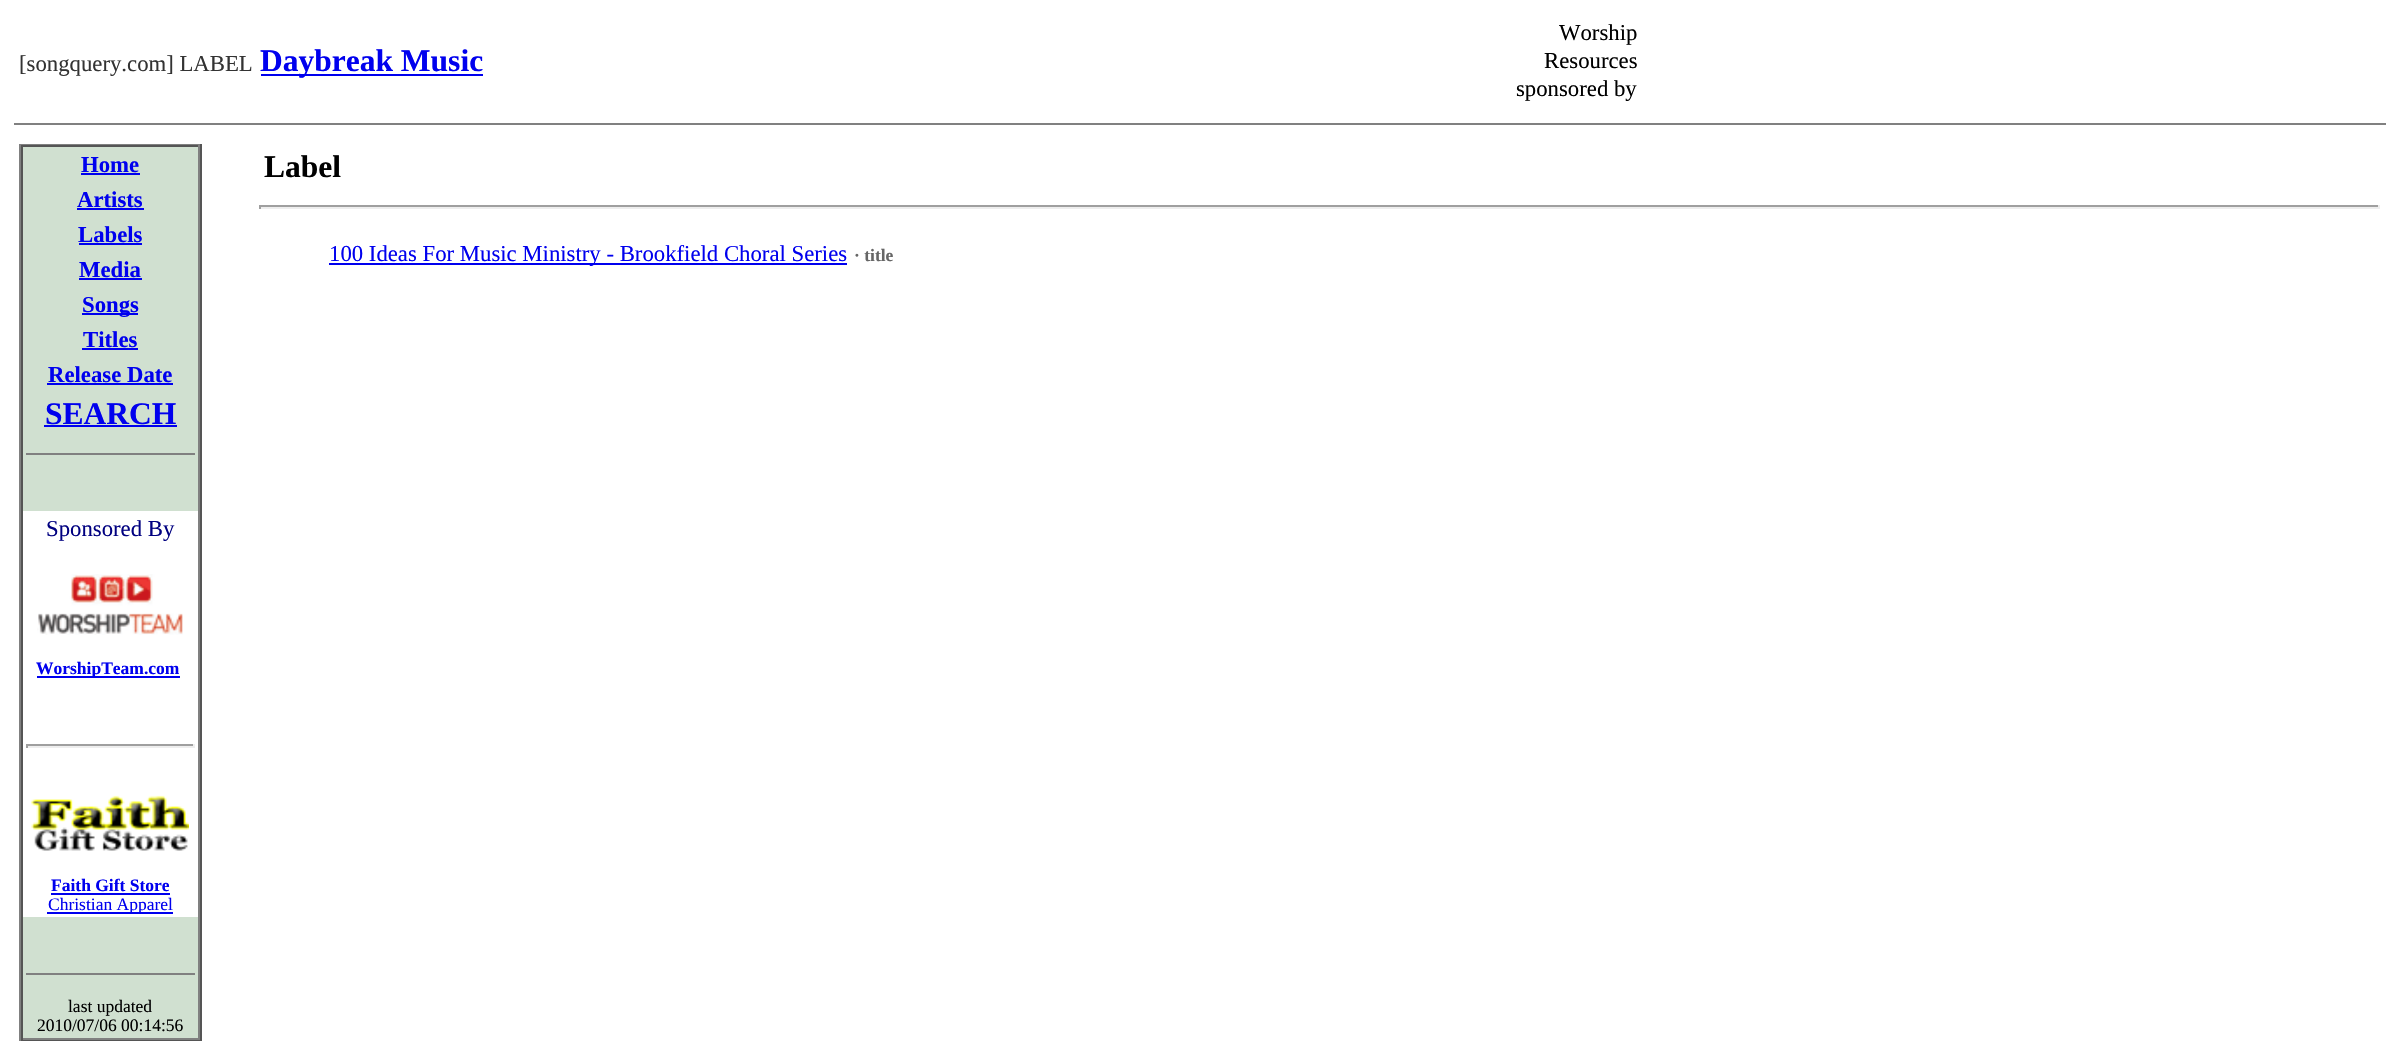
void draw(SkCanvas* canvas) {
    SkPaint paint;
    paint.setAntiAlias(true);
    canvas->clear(0xFFFFFFFF);
    SkFont font1(fontMgr->matchFamilyStyle("Liberation Serif", SkFontStyle::Normal()), 22.75f);
    font1.setSubpixel(true);
    paint.setColor(0xFF333333);
    canvas->drawString("[songquery.com] LABEL", 19, 71, font1, paint);
    paint.setColor(0xFF0000EE);
    canvas->drawRect(SkRect::MakeXYWH(261, 74, 222, 2), paint);
    SkFont font2(fontMgr->matchFamilyStyle("Liberation Serif", SkFontStyle::Bold()), 31.5f);
    font2.setSubpixel(true);
    canvas->drawString("Daybreak Music", 260, 71, font2, paint);
    paint.setColor(0xFF000000);
    canvas->drawString("Worship", 1559, 40, font1, paint);
    canvas->drawString("Resources", 1544, 68, font1, paint);
    canvas->drawString("sponsored by", 1516, 96, font1, paint);
    paint.setColor(0xFF808080);
    canvas->drawRect(SkRect::MakeXYWH(14, 123, 2372, 2), paint);
    paint.setColor(0xFFD0E0D0);
    canvas->drawRect(SkRect::MakeXYWH(23, 147, 175, 891), paint);
    paint.setColor(0xFF808080);
    canvas->drawRect(SkRect::MakeXYWH(19, 144, 182, 1), paint);
    paint.setColor(0xFF555555);
    canvas->drawRect(SkRect::MakeXYWH(200, 144, 2, 897), paint);
    canvas->drawRect(SkRect::MakeXYWH(19, 1040, 182, 1), paint);
    paint.setColor(0xFF808080);
    canvas->drawRect(SkRect::MakeXYWH(19, 144, 2, 897), paint);
    paint.setColor(0xFF555555);
    canvas->drawRect(SkRect::MakeXYWH(21, 145, 179, 2), paint);
    paint.setColor(0xFF808080);
    canvas->drawRect(SkRect::MakeXYWH(198, 145, 2, 895), paint);
    canvas->drawRect(SkRect::MakeXYWH(21, 1038, 179, 2), paint);
    paint.setColor(0xFF555555);
    canvas->drawRect(SkRect::MakeXYWH(21, 145, 2, 895), paint);
    SkFont font3(fontMgr->matchFamilyStyle("Liberation Serif", SkFontStyle::Bold()), 22.75f);
    font3.setSubpixel(true);
    paint.setColor(0xFF0000EE);
    canvas->drawString("Home", 81, 172, font3, paint);
    canvas->drawRect(SkRect::MakeXYWH(81, 173, 59, 2), paint);
    canvas->drawString("Artists", 77, 207, font3, paint);
    canvas->drawRect(SkRect::MakeXYWH(77, 208, 67, 2), paint);
    canvas->drawString("Labels", 78, 242, font3, paint);
    canvas->drawRect(SkRect::MakeXYWH(79, 243, 63, 2), paint);
    canvas->drawString("Media", 79, 277, font3, paint);
    canvas->drawRect(SkRect::MakeXYWH(79, 278, 63, 2), paint);
    canvas->drawRect(SkRect::MakeXYWH(82, 313, 56, 2), paint);
    canvas->drawString("Songs", 82, 312, font3, paint);
    canvas->drawString("Titles", 83, 347, font3, paint);
    canvas->drawRect(SkRect::MakeXYWH(82, 348, 56, 2), paint);
    canvas->drawString("Release Date", 48, 382, font3, paint);
    canvas->drawRect(SkRect::MakeXYWH(47, 383, 126, 2), paint);
    canvas->drawString("SEARCH", 45, 424, font2, paint);
    canvas->drawRect(SkRect::MakeXYWH(44, 425, 133, 2), paint);
    paint.setColor(0xFF808080);
    canvas->drawRect(SkRect::MakeXYWH(26, 453, 169, 2), paint);
    paint.setColor(0xFFFFFFFF);
    canvas->drawRect(SkRect::MakeXYWH(23, 511, 175, 406), paint);
    paint.setColor(0xFF000080);
    canvas->drawString("Sponsored By", 46, 536, font1, paint);
    canvas->drawImageRect(SkImages::DeferredFromEncodedData(SkData::MakeFromFileName("img1.png")), SkRect::MakeXYWH(37, 574, 146, 61), SkSamplingOptions());
    paint.setColor(0xFF0000EE);
    canvas->drawRect(SkRect::MakeXYWH(37, 676, 143, 2), paint);
    SkFont font4(fontMgr->matchFamilyStyle("Liberation Serif", SkFontStyle::Bold()), 17.5f);
    font4.setSubpixel(true);
    canvas->drawString("WorshipTeam.com", 36, 674, font4, paint);
    paint.setColor(0xFF9F9F9F);
    canvas->drawRect(SkRect::MakeXYWH(26, 744, 168, 2), paint);
    paint.setColor(0xFFEEEEEE);
    canvas->drawRect(SkRect::MakeXYWH(193, 744, 2, 4), paint);
    canvas->drawRect(SkRect::MakeXYWH(26, 746, 168, 2), paint);
    paint.setColor(0xFF9F9F9F);
    canvas->drawRect(SkRect::MakeXYWH(26, 744, 2, 4), paint);
    canvas->drawImageRect(SkImages::DeferredFromEncodedData(SkData::MakeFromFileName("img2.png")), SkRect::MakeXYWH(31, 795, 158, 56), SkSamplingOptions());
    paint.setColor(0xFF0000EE);
    canvas->drawString("Faith Gift Store", 51, 891, font4, paint);
    canvas->drawRect(SkRect::MakeXYWH(51, 893, 119, 2), paint);
    canvas->drawRect(SkRect::MakeXYWH(47, 912, 126, 2), paint);
    SkFont font5(fontMgr->matchFamilyStyle("Liberation Serif", SkFontStyle::Normal()), 17.5f);
    font5.setSubpixel(true);
    canvas->drawString("Christian Apparel", 48, 910, font5, paint);
    paint.setColor(0xFF808080);
    canvas->drawRect(SkRect::MakeXYWH(26, 973, 169, 2), paint);
    paint.setColor(0xFF000000);
    canvas->drawString("last updated", 68, 1012, font5, paint);
    canvas->drawString("2010/07/06 00:14:56", 37, 1031, font5, paint);
    canvas->drawString("Label", 264, 177, font2, paint);
    paint.setColor(0xFF9F9F9F);
    canvas->drawRect(SkRect::MakeXYWH(259, 205, 2121, 2), paint);
    paint.setColor(0xFFEEEEEE);
    canvas->drawRect(SkRect::MakeXYWH(2378, 205, 2, 4), paint);
    canvas->drawRect(SkRect::MakeXYWH(259, 207, 2121, 2), paint);
    paint.setColor(0xFF9F9F9F);
    canvas->drawRect(SkRect::MakeXYWH(259, 205, 2, 4), paint);
    paint.setColor(0xFF0000EE);
    canvas->drawRect(SkRect::MakeXYWH(329, 263, 518, 2), paint);
    canvas->drawString("100 Ideas For Music Ministry - Brookfield Choral Series", 329, 261, font1, paint);
    paint.setColor(0xFF666666);
    canvas->drawString("· title", 854, 261, font4, paint);
}
